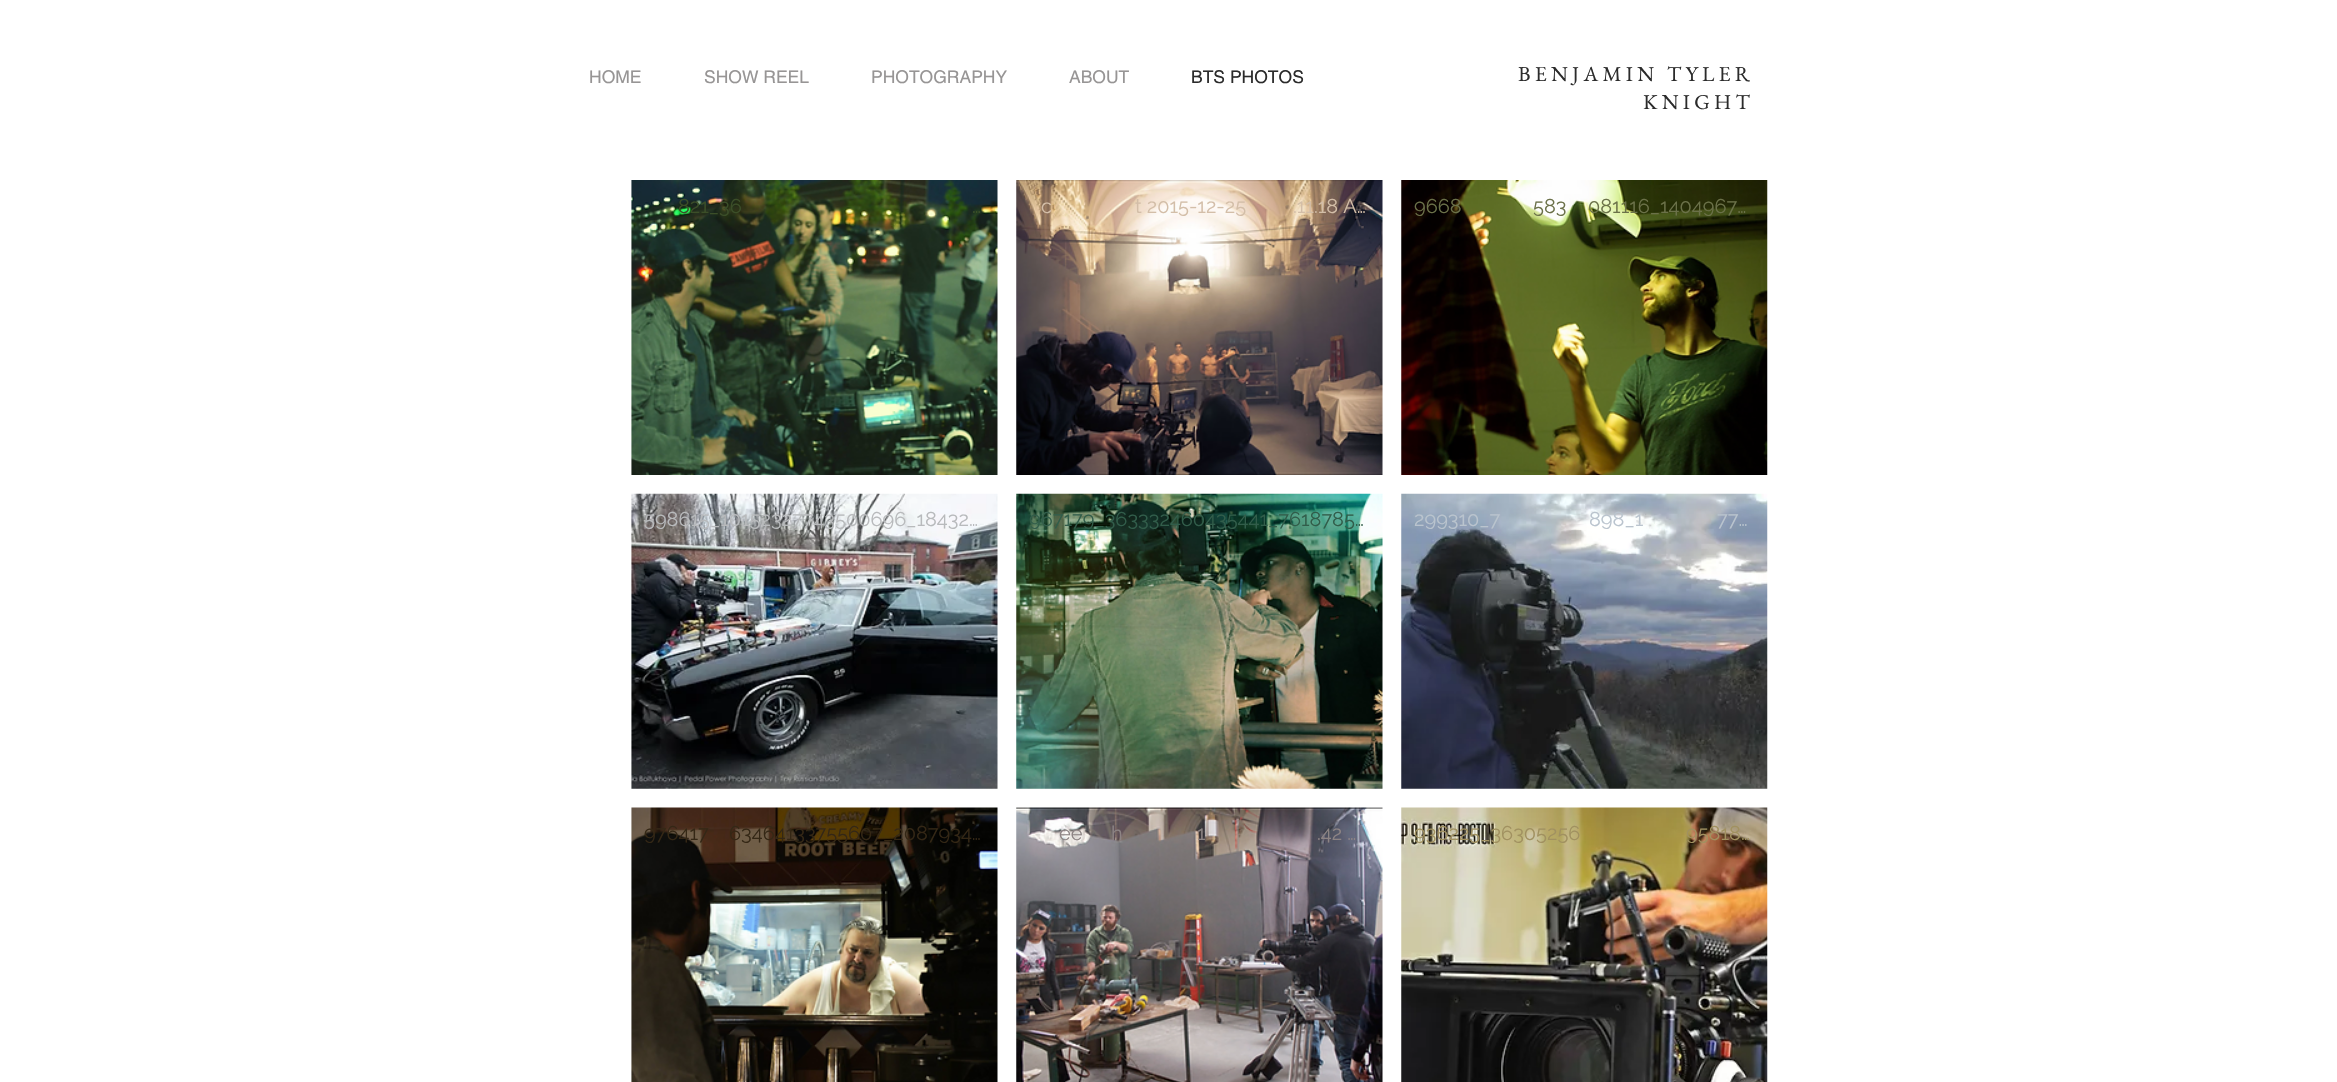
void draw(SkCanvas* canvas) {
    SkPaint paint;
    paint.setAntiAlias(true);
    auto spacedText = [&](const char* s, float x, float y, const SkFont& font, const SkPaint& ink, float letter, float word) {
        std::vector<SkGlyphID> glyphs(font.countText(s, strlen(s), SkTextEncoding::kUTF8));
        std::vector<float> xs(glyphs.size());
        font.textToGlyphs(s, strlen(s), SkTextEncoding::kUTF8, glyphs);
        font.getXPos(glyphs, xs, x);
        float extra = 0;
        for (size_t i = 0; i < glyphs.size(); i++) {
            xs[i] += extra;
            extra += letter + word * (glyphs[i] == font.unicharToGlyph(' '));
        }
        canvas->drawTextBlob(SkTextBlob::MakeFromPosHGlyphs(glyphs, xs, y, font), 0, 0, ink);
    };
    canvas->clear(0xFFFFFFFF);
    SkFont font1(fontMgr->matchFamilyStyle("helvetica", SkFontStyle::Normal()), 17.5f);
    font1.setSubpixel(true);
    paint.setColor(0xFF979595);
    canvas->drawString("HOME", 589, 83, font1, paint);
    canvas->drawString("SHOW REEL", 704, 83, font1, paint);
    canvas->drawString("PHOTOGRAPHY", 871, 83, font1, paint);
    canvas->drawString("ABOUT", 1069, 83, font1, paint);
    paint.setColor(0xFF2B2B2B);
    canvas->drawString("BTS PHOTOS", 1191, 83, font1, paint);
    SkFont font2(fontMgr->matchFamilyStyle("EB Garamond", SkFontStyle::Normal()), 21.25f);
    font2.setSubpixel(true);
    spacedText("BENJAMIN TYLER", 1518, 81, font2, paint, 4.25f, 0);
    spacedText("KNIGHT", 1643, 109, font2, paint, 4.25f, 0);
    canvas->drawImageRect(SkImages::DeferredFromEncodedData(SkData::MakeFromFileName("img1.png")), SkRect::MakeXYWH(631, 180, 367, 295), SkSamplingOptions());
    SkFont font3(fontMgr->matchFamilyStyle("Raleway", SkFontStyle::Normal()), 20);
    font3.setSubpixel(true);
    paint.setColor(0xFF3B4E28);
    canvas->drawString("821_36", 678, 213, font3, paint);
    canvas->drawString("…", 972, 213, font3, paint);
    canvas->drawImageRect(SkImages::DeferredFromEncodedData(SkData::MakeFromFileName("img2.png")), SkRect::MakeXYWH(1016, 180, 367, 295), SkSamplingOptions());
    paint.setColor(0xFFD3BEA8);
    canvas->drawString("c", 1041, 213, font3, paint);
    canvas->drawString("t 2015-12-25", 1135, 213, font3, paint);
    canvas->drawString(".11.18 A…", 1293, 213, font3, paint);
    canvas->drawImageRect(SkImages::DeferredFromEncodedData(SkData::MakeFromFileName("img3.png")), SkRect::MakeXYWH(1401, 180, 367, 295), SkSamplingOptions());
    paint.setColor(0xFF6B7149);
    canvas->drawString("9668", 1414, 213, font3, paint);
    canvas->drawString("583", 1533, 213, font3, paint);
    canvas->drawString("081116_1404967…", 1588, 213, font3, paint);
    canvas->drawImageRect(SkImages::DeferredFromEncodedData(SkData::MakeFromFileName("img4.png")), SkRect::MakeXYWH(631, 493, 367, 296), SkSamplingOptions());
    paint.setColor(0xFFB8BABC);
    canvas->drawString("598615_10152327743500696_18432…", 644, 526, font3, paint);
    canvas->drawImageRect(SkImages::DeferredFromEncodedData(SkData::MakeFromFileName("img5.png")), SkRect::MakeXYWH(1016, 493, 367, 296), SkSamplingOptions());
    paint.setColor(0xFF315D4A);
    canvas->drawString("967179_363332460435441_7618785…", 1029, 526, font3, paint);
    canvas->drawImageRect(SkImages::DeferredFromEncodedData(SkData::MakeFromFileName("img6.png")), SkRect::MakeXYWH(1401, 493, 367, 296), SkSamplingOptions());
    paint.setColor(0xFFBAC4CE);
    canvas->drawString("299310_7", 1414, 526, font3, paint);
    canvas->drawString("898_1", 1589, 526, font3, paint);
    canvas->drawString("77…", 1717, 526, font3, paint);
    canvas->drawImageRect(SkImages::DeferredFromEncodedData(SkData::MakeFromFileName("img7.png")), SkRect::MakeXYWH(631, 807, 367, 275), SkSamplingOptions());
    paint.setColor(0xFF342715);
    canvas->drawString("976417", 644, 840, font3, paint);
    canvas->drawString("63464133755607_2087934…", 729, 840, font3, paint);
    canvas->drawImageRect(SkImages::DeferredFromEncodedData(SkData::MakeFromFileName("img8.png")), SkRect::MakeXYWH(1016, 807, 367, 275), SkSamplingOptions());
    paint.setColor(0xFF8D8484);
    canvas->drawString("ee", 1059, 840, font3, paint);
    canvas->drawString("h", 1111, 840, font3, paint);
    canvas->drawString("1", 1197, 840, font3, paint);
    canvas->drawString(".42 …", 1317, 840, font3, paint);
    canvas->drawImageRect(SkImages::DeferredFromEncodedData(SkData::MakeFromFileName("img9.png")), SkRect::MakeXYWH(1401, 807, 367, 275), SkSamplingOptions());
    paint.setColor(0xFFA19160);
    canvas->drawString("936225_36305256", 1414, 840, font3, paint);
    canvas->drawString("95818…", 1686, 840, font3, paint);
}
